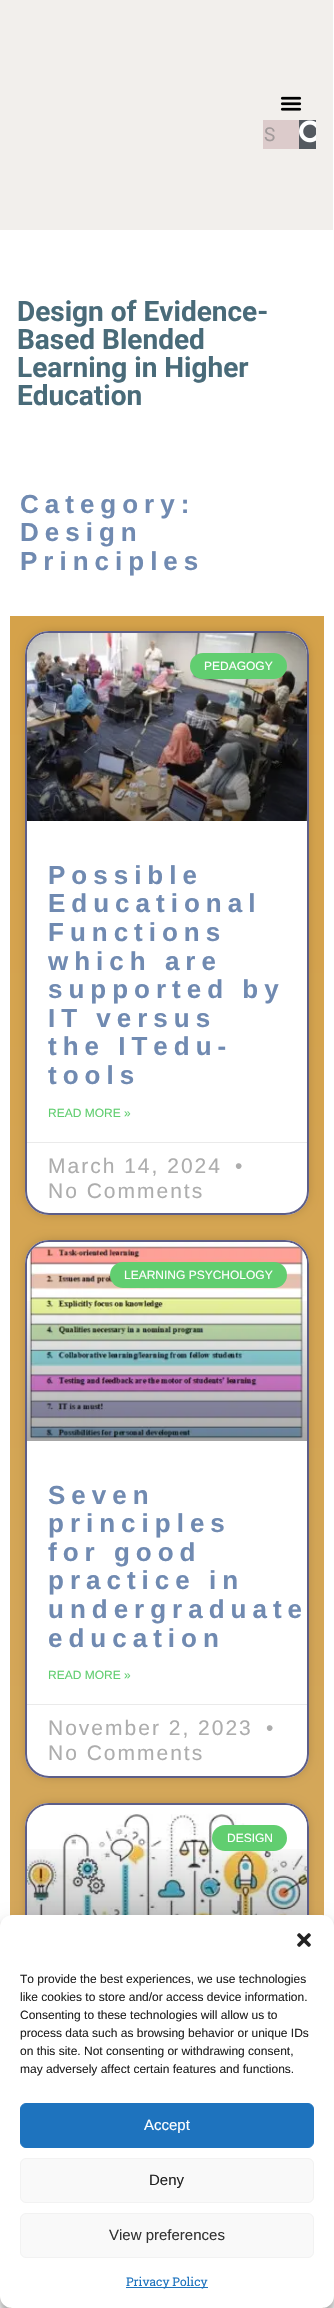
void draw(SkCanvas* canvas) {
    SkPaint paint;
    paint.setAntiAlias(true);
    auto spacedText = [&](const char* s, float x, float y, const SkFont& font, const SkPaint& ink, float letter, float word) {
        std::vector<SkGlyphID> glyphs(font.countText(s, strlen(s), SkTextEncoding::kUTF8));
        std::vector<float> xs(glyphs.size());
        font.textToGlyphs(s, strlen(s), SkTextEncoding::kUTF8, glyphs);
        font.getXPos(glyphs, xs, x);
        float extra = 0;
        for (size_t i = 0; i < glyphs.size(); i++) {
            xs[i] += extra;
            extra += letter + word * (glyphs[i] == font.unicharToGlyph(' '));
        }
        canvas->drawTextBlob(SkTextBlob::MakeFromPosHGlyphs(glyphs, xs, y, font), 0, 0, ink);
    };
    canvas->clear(0xFFFFFFFF);
    paint.setColor(0xFFF2EFEC);
    canvas->drawRect(SkRect::MakeXYWH(0, 0, 333, 230), paint);
    canvas->drawImageRect(SkImages::DeferredFromEncodedData(SkData::MakeFromFileName("img1.png")), SkRect::MakeXYWH(280, 96, 22, 15), SkSamplingOptions());
    paint.setColor(0xFFDCCBCB);
    canvas->drawRect(SkRect::MakeXYWH(263, 120, 36, 29), paint);
    SkFont font1(fontMgr->matchFamilyStyle("Roboto", SkFontStyle::Normal()), 19);
    font1.setSubpixel(true);
    paint.setColor(0xFFA19A9A);
    canvas->drawString("S", 264, 141, font1, paint);
    paint.setColor(0xFF54595F);
    canvas->drawRect(SkRect::MakeXYWH(299, 120, 17, 29), paint);
    canvas->drawImageRect(SkImages::DeferredFromEncodedData(SkData::MakeFromFileName("img2.png")), SkRect::MakeXYWH(299, 120, 17, 23), SkSamplingOptions());
    SkFont font2(fontMgr->matchFamilyStyle("Roboto", SkFontStyle::Bold()), 28);
    font2.setSubpixel(true);
    paint.setColor(0xFF496B79);
    canvas->drawString("Design of Evidence-", 17, 321, font2, paint);
    canvas->drawString("Based Blended", 17, 349, font2, paint);
    canvas->drawString("Learning in Higher", 17, 377, font2, paint);
    canvas->drawString("Education", 17, 405, font2, paint);
    SkFont font3(fontMgr->matchFamilyStyle("Liberation Sans", SkFontStyle::Bold()), 26);
    font3.setSubpixel(true);
    paint.setColor(0xFF708AB1);
    spacedText("Category:", 20, 513, font3, paint, 6, 0);
    spacedText("Design", 20, 541, font3, paint, 6, 0);
    spacedText("Principles", 20, 570, font3, paint, 6, 0);
    {
        const SkColor colors[] = {0xFFD5A24A, 0xFFCFC3AE};
        const float stops[] = {0, 1};
        const SkPoint ends[] = {{167, 616}, {167, 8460}};
        paint.setShader(SkGradientShader::MakeLinear(ends, colors, stops, 2, SkTileMode::kClamp));
        paint.setAlpha(255);
    }
    canvas->drawRect(SkRect::MakeXYWH(10, 616, 314, 1692), paint);
    paint.setShader(nullptr);
    paint.setColor(0x26000000);
    paint.setMaskFilter(SkMaskFilter::MakeBlur(kNormal_SkBlurStyle, 5));
    canvas->drawRoundRect(SkRect::MakeXYWH(25, 631, 284, 584), 24, 24, paint);
    paint.setMaskFilter(nullptr);
    paint.setColor(0xFFFFFFFF);
    canvas->drawRoundRect(SkRect::MakeXYWH(25, 631, 284, 584), 24, 24, paint);
    paint.setStyle(SkPaint::kStroke_Style);
    paint.setStrokeWidth(2);
    paint.setColor(0xF7585985);
    canvas->drawRoundRect(SkRect::MakeXYWH(26, 632, 282, 582), 23, 23, paint);
    canvas->drawImageRect(SkImages::DeferredFromEncodedData(SkData::MakeFromFileName("img3.png")), SkRect::MakeXYWH(27, 633, 280, 188), SkSamplingOptions());
    paint.setStyle(SkPaint::kFill_Style);
    {
        const SkColor colors[] = {0x59000000, 0x00000000};
        const float stops[] = {0, 0.75f};
        const SkPoint ends[] = {{167, 821}, {167, 633}};
        paint.setShader(SkGradientShader::MakeLinear(ends, colors, stops, 2, SkTileMode::kClamp));
        paint.setAlpha(255);
    }
    canvas->drawRect(SkRect::MakeXYWH(27, 689, 280, 132), paint);
    paint.setShader(nullptr);
    paint.setColor(0xFF61CE70);
    canvas->drawRoundRect(SkRect::MakeXYWH(190, 653, 97, 26), 13, 13, paint);
    SkFont font4(fontMgr->matchFamilyStyle("Liberation Sans", SkFontStyle::Normal()), 12);
    font4.setSubpixel(true);
    paint.setColor(0xFFFFFFFF);
    canvas->drawString("PEDAGOGY", 204, 670, font4, paint);
    paint.setColor(0xFF708AB1);
    spacedText("Possible", 48, 884, font3, paint, 6, 0);
    spacedText("Educational", 48, 912, font3, paint, 6, 0);
    spacedText("Functions", 48, 941, font3, paint, 6, 0);
    spacedText("which are", 48, 970, font3, paint, 6, 0);
    spacedText("supported by", 48, 998, font3, paint, 6, 0);
    spacedText("IT versus", 48, 1027, font3, paint, 6, 0);
    spacedText("the ITedu-", 48, 1055, font3, paint, 6, 0);
    spacedText("tools", 48, 1084, font3, paint, 6, 0);
    paint.setColor(0xFF61CE70);
    canvas->drawString("READ MORE »", 48, 1117, font4, paint);
    paint.setColor(0xFFEAEAEA);
    canvas->drawRect(SkRect::MakeXYWH(27, 1142, 280, 1), paint);
    SkFont font5(fontMgr->matchFamilyStyle("Liberation Sans", SkFontStyle::Normal()), 21);
    font5.setSubpixel(true);
    paint.setColor(0xFFADADAD);
    spacedText("March 14, 2024", 48, 1173, font5, paint, 2, 0);
    spacedText("•", 235, 1173, font5, paint, 2, 0);
    spacedText("No Comments", 48, 1198, font5, paint, 2, 0);
    paint.setColor(0x26000000);
    paint.setMaskFilter(SkMaskFilter::MakeBlur(kNormal_SkBlurStyle, 5));
    canvas->drawRoundRect(SkRect::MakeXYWH(25, 1240, 284, 538), 24, 24, paint);
    paint.setMaskFilter(nullptr);
    paint.setColor(0xFFFFFFFF);
    canvas->drawRoundRect(SkRect::MakeXYWH(25, 1240, 284, 538), 24, 24, paint);
    paint.setStyle(SkPaint::kStroke_Style);
    paint.setColor(0xF7585985);
    canvas->drawRoundRect(SkRect::MakeXYWH(26, 1241, 282, 536), 23, 23, paint);
    canvas->drawImageRect(SkImages::DeferredFromEncodedData(SkData::MakeFromFileName("img4.png")), SkRect::MakeXYWH(27, 1242, 280, 198), SkSamplingOptions());
    paint.setStyle(SkPaint::kFill_Style);
    {
        const SkColor colors[] = {0x59000000, 0x00000000};
        const float stops[] = {0, 0.75f};
        const SkPoint ends[] = {{167, 1441}, {167, 1242}};
        paint.setShader(SkGradientShader::MakeLinear(ends, colors, stops, 2, SkTileMode::kClamp));
        paint.setAlpha(255);
    }
    canvas->drawRect(SkRect::MakeXYWH(27, 1301, 280, 140), paint);
    paint.setShader(nullptr);
    paint.setColor(0xFF61CE70);
    canvas->drawRoundRect(SkRect::MakeXYWH(110, 1262, 177, 26), 13, 13, paint);
    paint.setColor(0xFFFFFFFF);
    canvas->drawString("LEARNING PSYCHOLOGY", 124, 1279, font4, paint);
    paint.setColor(0xFF708AB1);
    spacedText("Seven", 48, 1504, font3, paint, 6, 0);
    spacedText("principles", 48, 1532, font3, paint, 6, 0);
    spacedText("for good", 48, 1561, font3, paint, 6, 0);
    spacedText("practice in", 48, 1589, font3, paint, 6, 0);
    spacedText("undergraduate", 48, 1618, font3, paint, 6, 0);
    spacedText("education", 48, 1647, font3, paint, 6, 0);
    paint.setColor(0xFF61CE70);
    canvas->drawString("READ MORE »", 48, 1679, font4, paint);
    paint.setColor(0xFFEAEAEA);
    canvas->drawRect(SkRect::MakeXYWH(27, 1704, 280, 1), paint);
    paint.setColor(0xFFADADAD);
    spacedText("November 2, 2023", 48, 1735, font5, paint, 2, 0);
    spacedText("•", 266, 1735, font5, paint, 2, 0);
    spacedText("No Comments", 48, 1760, font5, paint, 2, 0);
    paint.setColor(0x26000000);
    paint.setMaskFilter(SkMaskFilter::MakeBlur(kNormal_SkBlurStyle, 5));
    canvas->drawRoundRect(SkRect::MakeXYWH(25, 1803, 284, 487), 24, 24, paint);
    paint.setMaskFilter(nullptr);
    paint.setColor(0xFFFFFFFF);
    canvas->drawRoundRect(SkRect::MakeXYWH(25, 1803, 284, 487), 24, 24, paint);
    paint.setStyle(SkPaint::kStroke_Style);
    paint.setColor(0xF7585985);
    canvas->drawRoundRect(SkRect::MakeXYWH(26, 1804, 282, 485), 23, 23, paint);
    canvas->drawImageRect(SkImages::DeferredFromEncodedData(SkData::MakeFromFileName("img5.png")), SkRect::MakeXYWH(27, 1805, 280, 110), SkSamplingOptions());
    paint.setStyle(SkPaint::kFill_Style);
    {
        const SkColor colors[] = {0x59000000, 0x00000000};
        const float stops[] = {0, 0.75f};
        const SkPoint ends[] = {{167, 1953}, {167, 1805}};
        paint.setShader(SkGradientShader::MakeLinear(ends, colors, stops, 2, SkTileMode::kClamp));
        paint.setAlpha(255);
    }
    canvas->drawRect(SkRect::MakeXYWH(27, 1849, 280, 66), paint);
    paint.setShader(nullptr);
    paint.setColor(0xFF61CE70);
    canvas->drawRoundRect(SkRect::MakeXYWH(212, 1825, 75, 26), 13, 13, paint);
    paint.setColor(0xFFFFFFFF);
    canvas->drawString("DESIGN", 227, 1842, font4, paint);
    paint.setColor(0x3B000000);
    paint.setMaskFilter(SkMaskFilter::MakeBlur(kNormal_SkBlurStyle, 3));
    canvas->drawRoundRect(SkRect::MakeXYWH(0, 1921, 334, 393), 12, 12, paint);
    paint.setMaskFilter(nullptr);
    paint.setColor(0x30000000);
    paint.setMaskFilter(SkMaskFilter::MakeBlur(kNormal_SkBlurStyle, 10));
    canvas->drawRoundRect(SkRect::MakeXYWH(0, 1925, 334, 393), 12, 12, paint);
    paint.setMaskFilter(nullptr);
    paint.setColor(0xFFFFFFFF);
    canvas->drawRoundRect(SkRect::MakeXYWH(0, 1915, 334, 393), 12, 12, paint);
    canvas->drawImageRect(SkImages::DeferredFromEncodedData(SkData::MakeFromFileName("img6.png")), SkRect::MakeXYWH(297, 1933, 14, 14), SkSamplingOptions());
    paint.setColor(0xFF222222);
    canvas->drawString("To provide the best experiences, we use technologies", 20, 1983, font4, paint);
    canvas->drawString("like cookies to store and/or access device information.", 20, 2001, font4, paint);
    canvas->drawString("Consenting to these technologies will allow us to", 20, 2019, font4, paint);
    canvas->drawString("process data such as browsing behavior or unique IDs", 20, 2037, font4, paint);
    canvas->drawString("on this site. Not consenting or withdrawing consent,", 20, 2055, font4, paint);
    canvas->drawString("may adversely affect certain features and functions.", 20, 2073, font4, paint);
    paint.setColor(0xFF1E73BE);
    canvas->drawRoundRect(SkRect::MakeXYWH(20.5f, 2103.5f, 293, 44), 5.5f, 5.5f, paint);
    paint.setStyle(SkPaint::kStroke_Style);
    paint.setStrokeWidth(1);
    canvas->drawRoundRect(SkRect::MakeXYWH(20.5f, 2103.5f, 293, 44), 5.5f, 5.5f, paint);
    SkFont font6(fontMgr->matchFamilyStyle("Liberation Sans", SkFontStyle::Normal()), 15);
    font6.setSubpixel(true);
    paint.setStyle(SkPaint::kFill_Style);
    paint.setColor(0xFFFFFFFF);
    canvas->drawString("Accept", 144, 2130, font6, paint);
    paint.setColor(0xFFF9F9F9);
    canvas->drawRoundRect(SkRect::MakeXYWH(20.5f, 2158.5f, 293, 44), 5.5f, 5.5f, paint);
    paint.setStyle(SkPaint::kStroke_Style);
    paint.setColor(0xFFF2F2F2);
    canvas->drawRoundRect(SkRect::MakeXYWH(20.5f, 2158.5f, 293, 44), 5.5f, 5.5f, paint);
    paint.setStyle(SkPaint::kFill_Style);
    paint.setColor(0xFF222222);
    canvas->drawString("Deny", 149, 2185, font6, paint);
    paint.setColor(0xFFF9F9F9);
    canvas->drawRoundRect(SkRect::MakeXYWH(20.5f, 2213.5f, 293, 44), 5.5f, 5.5f, paint);
    paint.setStyle(SkPaint::kStroke_Style);
    paint.setColor(0xFFF2F2F2);
    canvas->drawRoundRect(SkRect::MakeXYWH(20.5f, 2213.5f, 293, 44), 5.5f, 5.5f, paint);
    paint.setStyle(SkPaint::kFill_Style);
    paint.setColor(0xFF333333);
    canvas->drawString("View preferences", 109, 2240, font6, paint);
    paint.setColor(0xFF1E73BE);
    canvas->drawRect(SkRect::MakeXYWH(126, 2287, 82, 1), paint);
    SkFont font7(fontMgr->matchFamilyStyle("Roboto Slab", SkFontStyle::Normal()), 12);
    font7.setSubpixel(true);
    canvas->drawString("Privacy Policy", 126, 2286, font7, paint);
}
